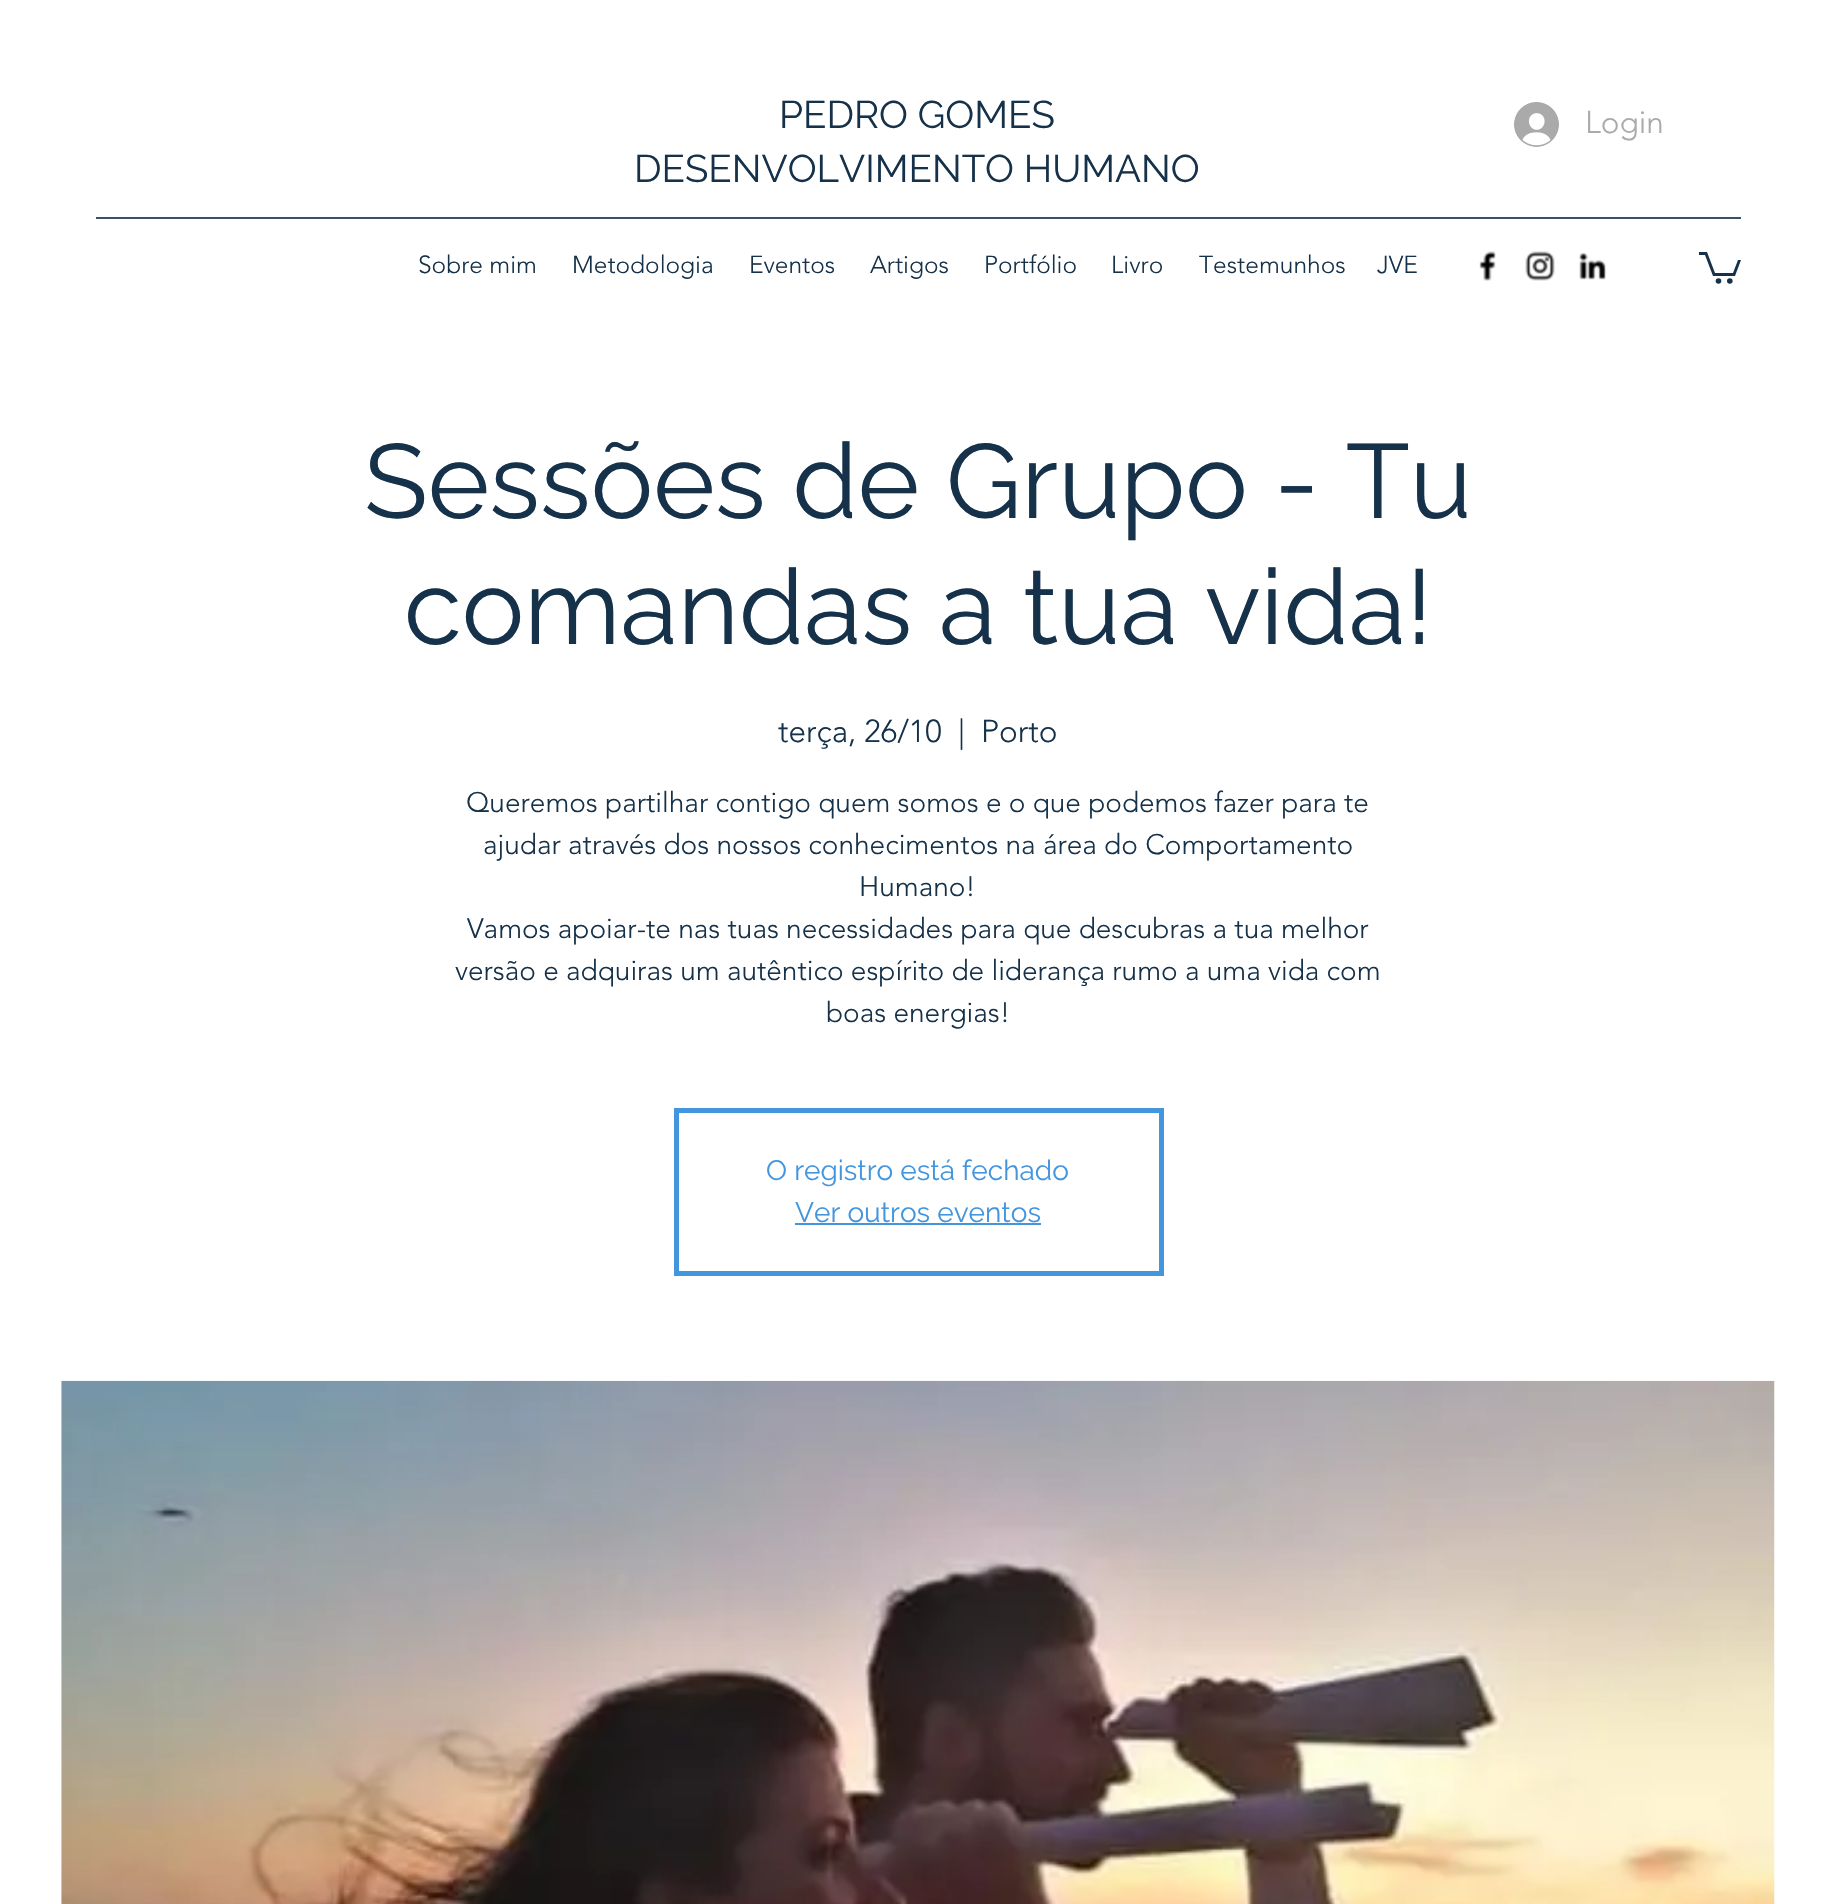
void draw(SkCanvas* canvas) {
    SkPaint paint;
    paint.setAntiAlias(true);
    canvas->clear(0xFFFFFFFF);
    SkFont font1(fontMgr->matchFamilyStyle("Raleway", SkFontStyle::Normal()), 38.5f);
    font1.setSubpixel(true);
    paint.setColor(0xFF16324A);
    canvas->drawString("PEDRO GOMES", 779, 128, font1, paint);
    canvas->drawString("DESENVOLVIMENTO HUMANO", 634, 182, font1, paint);
    canvas->drawImageRect(SkImages::DeferredFromEncodedData(SkData::MakeFromFileName("img1.png")), SkRect::MakeXYWH(1514, 102, 45, 45), SkSamplingOptions());
    SkFont font2(fontMgr->matchFamilyStyle("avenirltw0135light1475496", SkFontStyle(300, SkFontStyle::kNormal_Width, SkFontStyle::kUpright_Slant)), 31.5f);
    font2.setSubpixel(true);
    paint.setColor(0xFFAAAAAA);
    canvas->drawString("Login", 1585, 133, font2, paint);
    paint.setColor(0xFF395065);
    canvas->drawRect(SkRect::MakeXYWH(96, 217, 1645, 2), paint);
    SkFont font3(fontMgr->matchFamilyStyle("avenirltw0135light1475496", SkFontStyle(300, SkFontStyle::kNormal_Width, SkFontStyle::kUpright_Slant)), 24.5f);
    font3.setSubpixel(true);
    paint.setColor(0xFF16324A);
    canvas->drawString("Sobre mim", 418, 273, font3, paint);
    canvas->drawString("Metodologia", 572, 273, font3, paint);
    canvas->drawString("Eventos", 749, 273, font3, paint);
    canvas->drawString("Artigos", 870, 273, font3, paint);
    canvas->drawString("Portfólio", 984, 273, font3, paint);
    canvas->drawString("Livro", 1111, 273, font3, paint);
    canvas->drawString("Testemunhos", 1199, 273, font3, paint);
    canvas->drawString("JVE", 1377, 273, font3, paint);
    canvas->drawImageRect(SkImages::DeferredFromEncodedData(SkData::MakeFromFileName("img2.png")), SkRect::MakeXYWH(1479, 251, 17, 30), SkSamplingOptions());
    canvas->drawImageRect(SkImages::DeferredFromEncodedData(SkData::MakeFromFileName("img3.png")), SkRect::MakeXYWH(1525, 251, 30, 30), SkSamplingOptions());
    canvas->drawImageRect(SkImages::DeferredFromEncodedData(SkData::MakeFromFileName("img4.png")), SkRect::MakeXYWH(1579, 253, 27, 27), SkSamplingOptions());
    canvas->drawPath(SkPathBuilder().moveTo(1741, 260).lineTo(1735, 276).lineTo(1713, 276).lineTo(1705, 255).lineTo(1699, 255).lineTo(1699, 252).lineTo(1707, 252).lineTo(1715, 273).lineTo(1733, 273).lineTo(1738, 260).detach(), paint);
    canvas->drawCircle(1729.8f, 281, 2.8f, paint);
    canvas->drawCircle(1718.5f, 281, 2.8f, paint);
    SkFont font4(fontMgr->matchFamilyStyle("Raleway", SkFontStyle::Normal()), 105);
    font4.setSubpixel(true);
    canvas->drawString("Sessões de Grupo - Tu", 364, 518, font4, paint);
    canvas->drawString("comandas a tua vida!", 404, 644, font4, paint);
    canvas->drawString("terça, 26/10", 778, 742, font2, paint);
    canvas->drawString("|", 958, 742, font2, paint);
    canvas->drawString("Porto", 981, 742, font2, paint);
    SkFont font5(fontMgr->matchFamilyStyle("avenirltw0135light1475496", SkFontStyle(300, SkFontStyle::kNormal_Width, SkFontStyle::kUpright_Slant)), 28);
    font5.setSubpixel(true);
    canvas->drawString("Queremos partilhar contigo quem somos e o que podemos fazer para te", 466, 812, font5, paint);
    canvas->drawString("ajudar através dos nossos conhecimentos na área do Comportamento", 483, 854, font5, paint);
    canvas->drawString("Humano!", 859, 896, font5, paint);
    canvas->drawString("Vamos apoiar-te nas tuas necessidades para que descubras a tua melhor", 467, 938, font5, paint);
    canvas->drawString("versão e adquiras um autêntico espírito de liderança rumo a uma vida com", 455, 980, font5, paint);
    canvas->drawString("boas energias!", 826, 1022, font5, paint);
    paint.setStyle(SkPaint::kStroke_Style);
    paint.setStrokeWidth(5);
    paint.setColor(0xFF4395DE);
    canvas->drawRect(SkRect::MakeXYWH(676.5f, 1110.5f, 485, 163), paint);
    SkFont font6(fontMgr->matchFamilyStyle("Raleway", SkFontStyle::Normal()), 28);
    font6.setSubpixel(true);
    paint.setStyle(SkPaint::kFill_Style);
    canvas->drawString("O registro está fechado", 766, 1180, font6, paint);
    canvas->drawString("Ver outros eventos", 795, 1222, font6, paint);
    canvas->drawRect(SkRect::MakeXYWH(795, 1223, 246, 2), paint);
    canvas->drawImageRect(SkImages::DeferredFromEncodedData(SkData::MakeFromFileName("img5.png")), SkRect::MakeXYWH(61, 1380, 1714, 524), SkSamplingOptions());
}
